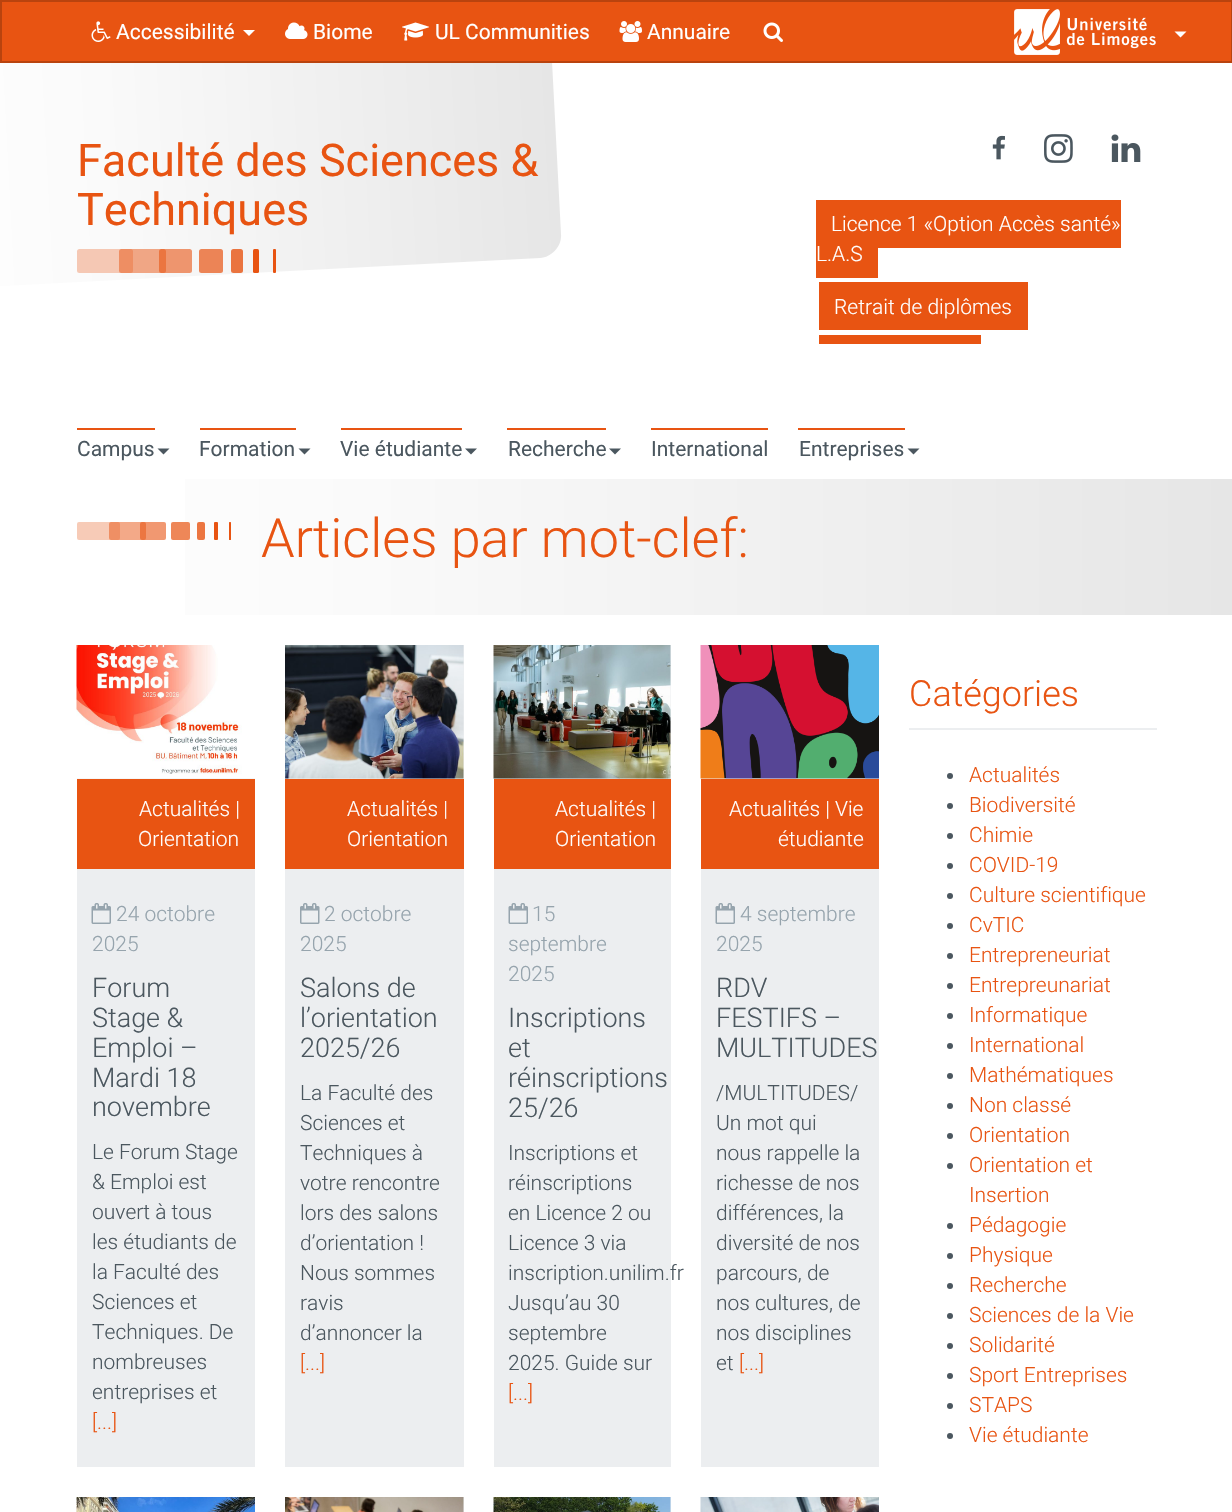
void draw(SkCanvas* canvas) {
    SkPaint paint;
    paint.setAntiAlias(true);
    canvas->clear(0xFFFFFFFF);
    {
        const SkColor colors[] = {0xFFFFFFFF, 0xFFFAFAFA, 0xFFE6E6E6};
        const float stops[] = {0, 0.3f, 1};
        const SkPoint ends[] = {{-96, 28}, {549, -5.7f}};
        paint.setShader(SkGradientShader::MakeLinear(ends, colors, stops, 3, SkTileMode::kClamp));
        paint.setAlpha(255);
    }
    canvas->drawPath(SkPathBuilder().moveTo(-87, -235).lineTo(512, -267).cubicTo(525, -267, 535, -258, 536, -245).lineTo(561, 234).cubicTo(562, 246, 552, 257, 540, 258).lineTo(-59, 289).cubicTo(-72, 290, -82, 280, -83, 268).lineTo(-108, -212).cubicTo(-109, -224, -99, -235, -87, -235).close().detach(), paint);
    paint.setShader(nullptr);
    paint.setColor(0xFFE85412);
    canvas->drawRect(SkRect::MakeXYWH(1, 1, 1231, 61), paint);
    paint.setStyle(SkPaint::kStroke_Style);
    paint.setStrokeWidth(2);
    paint.setColor(0xFFB9430E);
    canvas->drawRect(SkRect::MakeXYWH(1, 1, 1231, 61), paint);
    canvas->drawImageRect(SkImages::DeferredFromEncodedData(SkData::MakeFromFileName("img1.png")), SkRect::MakeXYWH(91, 21, 20, 21), SkSamplingOptions());
    SkFont font1(fontMgr->matchFamilyStyle("Roboto", SkFontStyle::Normal()), 21);
    font1.setSubpixel(true);
    paint.setStyle(SkPaint::kFill_Style);
    paint.setColor(0xFFFFFFFF);
    canvas->drawString("Accessibilité", 116, 39, font1, paint);
    canvas->drawPath(SkPathBuilder().moveTo(243, 30).lineTo(255, 30).lineTo(249, 36).close().detach(), paint);
    canvas->drawImageRect(SkImages::DeferredFromEncodedData(SkData::MakeFromFileName("img2.png")), SkRect::MakeXYWH(285, 22, 23, 17), SkSamplingOptions());
    canvas->drawString("Biome", 313, 39, font1, paint);
    canvas->drawImageRect(SkImages::DeferredFromEncodedData(SkData::MakeFromFileName("img3.png")), SkRect::MakeXYWH(402, 22, 27, 19), SkSamplingOptions());
    canvas->drawString("UL Communities", 435, 39, font1, paint);
    canvas->drawImageRect(SkImages::DeferredFromEncodedData(SkData::MakeFromFileName("img4.png")), SkRect::MakeXYWH(619, 21, 23, 21), SkSamplingOptions());
    canvas->drawString("Annuaire", 647, 39, font1, paint);
    canvas->drawImageRect(SkImages::DeferredFromEncodedData(SkData::MakeFromFileName("img5.png")), SkRect::MakeXYWH(763, 22, 20, 20), SkSamplingOptions());
    canvas->drawImageRect(SkImages::DeferredFromEncodedData(SkData::MakeFromFileName("img6.png")), SkRect::MakeXYWH(1014, 9, 142, 46), SkSamplingOptions());
    canvas->drawPath(SkPathBuilder().moveTo(1174.5f, 31.5f).lineTo(1186.5f, 31.5f).lineTo(1180.5f, 37.5f).close().detach(), paint);
    SkFont font2(fontMgr->matchFamilyStyle("Roboto", SkFontStyle::Normal()), 45);
    font2.setSubpixel(true);
    paint.setColor(0xFFE85412);
    canvas->drawString("Faculté des Sciences &", 77, 176, font2, paint);
    canvas->drawString("Techniques", 77, 225, font2, paint);
    paint.setColor(0xFFF5C8B4);
    canvas->drawRoundRect(SkRect::MakeXYWH(77, 249, 56, 24), 2.5f, 2.5f, paint);
    paint.setColor(0x80E85412);
    canvas->drawRoundRect(SkRect::MakeXYWH(119, 249, 47, 24), 2.5f, 2.5f, paint);
    paint.setColor(0x99E85412);
    canvas->drawRoundRect(SkRect::MakeXYWH(159, 249, 33, 24), 2.5f, 2.5f, paint);
    paint.setColor(0xFFEC8456);
    canvas->drawRoundRect(SkRect::MakeXYWH(199, 249, 24, 24), 2.5f, 2.5f, paint);
    paint.setColor(0xFFEA743F);
    canvas->drawRoundRect(SkRect::MakeXYWH(231, 249, 12, 24), 2.5f, 2.5f, paint);
    paint.setColor(0xFFE85412);
    canvas->drawRoundRect(SkRect::MakeXYWH(253, 249, 6, 24), 1.5f, 1.5f, paint);
    canvas->drawRoundRect(SkRect::MakeXYWH(273, 249, 3, 24), 1, 1, paint);
    canvas->drawImageRect(SkImages::DeferredFromEncodedData(SkData::MakeFromFileName("img7.png")), SkRect::MakeXYWH(992, 135, 13, 25), SkSamplingOptions());
    canvas->drawImageRect(SkImages::DeferredFromEncodedData(SkData::MakeFromFileName("img8.png")), SkRect::MakeXYWH(1044, 134, 29, 29), SkSamplingOptions());
    canvas->drawImageRect(SkImages::DeferredFromEncodedData(SkData::MakeFromFileName("img9.png")), SkRect::MakeXYWH(1111, 134, 30, 28), SkSamplingOptions());
    canvas->drawRect(SkRect::MakeXYWH(816, 200, 305, 48), paint);
    SkFont font3(fontMgr->matchFamilyStyle("Roboto", SkFontStyle(300, SkFontStyle::kNormal_Width, SkFontStyle::kUpright_Slant)), 21);
    font3.setSubpixel(true);
    paint.setColor(0xFFFFFFFF);
    canvas->drawString("Licence 1 «Option Accès santé»", 831, 231, font3, paint);
    paint.setColor(0xFFE85412);
    canvas->drawRect(SkRect::MakeXYWH(816, 248, 62, 30), paint);
    paint.setColor(0xFFFFFFFF);
    canvas->drawString("L.A.S", 816, 261, font3, paint);
    paint.setColor(0xFFE85412);
    canvas->drawRect(SkRect::MakeXYWH(819, 282, 209, 48), paint);
    paint.setColor(0xFFFFFFFF);
    canvas->drawString("Retrait de diplômes", 834, 314, font3, paint);
    paint.setColor(0xFFE85412);
    canvas->drawRect(SkRect::MakeXYWH(819, 335, 162, 9), paint);
    paint.setColor(0xFF4B575F);
    canvas->drawString("Campus", 77, 456, font1, paint);
    paint.setColor(0xFFE85412);
    canvas->drawRect(SkRect::MakeXYWH(77, 428, 78, 2), paint);
    paint.setColor(0xFF4B575F);
    canvas->drawPath(SkPathBuilder().moveTo(157.5f, 448.5f).lineTo(169.5f, 448.5f).lineTo(163.5f, 454.5f).close().detach(), paint);
    canvas->drawString("Formation", 199, 456, font1, paint);
    paint.setColor(0xFFE85412);
    canvas->drawRect(SkRect::MakeXYWH(200, 428, 96, 2), paint);
    paint.setColor(0xFF4B575F);
    canvas->drawPath(SkPathBuilder().moveTo(298.5f, 448.5f).lineTo(310.5f, 448.5f).lineTo(304.5f, 454.5f).close().detach(), paint);
    canvas->drawString("Vie étudiante", 340, 456, font1, paint);
    paint.setColor(0xFFE85412);
    canvas->drawRect(SkRect::MakeXYWH(341, 428, 121, 2), paint);
    paint.setColor(0xFF4B575F);
    canvas->drawPath(SkPathBuilder().moveTo(465, 448.5f).lineTo(477, 448.5f).lineTo(471, 454.5f).close().detach(), paint);
    canvas->drawString("Recherche", 508, 456, font1, paint);
    paint.setColor(0xFFE85412);
    canvas->drawRect(SkRect::MakeXYWH(507, 428, 99, 2), paint);
    paint.setColor(0xFF4B575F);
    canvas->drawPath(SkPathBuilder().moveTo(609, 448.5f).lineTo(621, 448.5f).lineTo(615, 454.5f).close().detach(), paint);
    canvas->drawString("International", 651, 456, font1, paint);
    paint.setColor(0xFFE85412);
    canvas->drawRect(SkRect::MakeXYWH(651, 428, 117, 2), paint);
    paint.setColor(0xFF4B575F);
    canvas->drawString("Entreprises", 799, 456, font1, paint);
    paint.setColor(0xFFE85412);
    canvas->drawRect(SkRect::MakeXYWH(798, 428, 107, 2), paint);
    paint.setColor(0xFF4B575F);
    canvas->drawPath(SkPathBuilder().moveTo(907.5f, 448.5f).lineTo(919.5f, 448.5f).lineTo(913.5f, 454.5f).close().detach(), paint);
    {
        const SkColor colors[] = {0xFFFFFFFF, 0xFFFAFAFA, 0xFFE6E6E6};
        const float stops[] = {0, 0.3f, 1};
        const SkPoint ends[] = {{0, 547}, {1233, 547}};
        paint.setShader(SkGradientShader::MakeLinear(ends, colors, stops, 3, SkTileMode::kClamp));
        paint.setAlpha(255);
    }
    canvas->drawRect(SkRect::MakeXYWH(185, 479, 1047, 136), paint);
    paint.setShader(nullptr);
    paint.setColor(0xFFF7CBB7);
    canvas->drawRoundRect(SkRect::MakeXYWH(77, 522, 43, 18), 2, 2, paint);
    paint.setColor(0x80E85412);
    canvas->drawRoundRect(SkRect::MakeXYWH(109, 522, 37, 18), 2, 2, paint);
    paint.setColor(0x99E85412);
    canvas->drawRoundRect(SkRect::MakeXYWH(140, 522, 26, 18), 2, 2, paint);
    paint.setColor(0xFFEE8758);
    canvas->drawRoundRect(SkRect::MakeXYWH(171, 522, 19, 18), 2, 2, paint);
    paint.setColor(0xFFEC7641);
    canvas->drawRoundRect(SkRect::MakeXYWH(197, 522, 8, 18), 2, 2, paint);
    paint.setColor(0xFFE85412);
    canvas->drawRoundRect(SkRect::MakeXYWH(214, 522, 4, 18), 1, 1, paint);
    canvas->drawRoundRect(SkRect::MakeXYWH(229, 522, 2, 18), 0.5f, 0.5f, paint);
    SkFont font4(fontMgr->matchFamilyStyle("Roboto", SkFontStyle(300, SkFontStyle::kNormal_Width, SkFontStyle::kUpright_Slant)), 54);
    font4.setSubpixel(true);
    canvas->drawString("Articles par mot-clef:", 261, 557, font4, paint);
    paint.setColor(0xFFECEEF0);
    canvas->drawRect(SkRect::MakeXYWH(77, 778, 178, 689), paint);
    canvas->drawImageRect(SkImages::DeferredFromEncodedData(SkData::MakeFromFileName("img10.png")), SkRect::MakeXYWH(76, 645, 179, 134), SkSamplingOptions());
    paint.setColor(0xFFE85412);
    canvas->drawRect(SkRect::MakeXYWH(77, 779, 178, 90), paint);
    paint.setColor(0xFFFFFFFF);
    canvas->drawString("Actualités |", 139, 816, font3, paint);
    canvas->drawString("Orientation", 138, 846, font3, paint);
    canvas->drawImageRect(SkImages::DeferredFromEncodedData(SkData::MakeFromFileName("img11.png")), SkRect::MakeXYWH(91, 903, 20, 21), SkSamplingOptions());
    paint.setColor(0xFF96A4AD);
    canvas->drawString("24 octobre", 116, 921, font3, paint);
    canvas->drawString("2025", 92, 951, font3, paint);
    SkFont font5(fontMgr->matchFamilyStyle("Roboto", SkFontStyle(300, SkFontStyle::kNormal_Width, SkFontStyle::kUpright_Slant)), 27);
    font5.setSubpixel(true);
    paint.setColor(0xFF4B575F);
    canvas->drawString("Forum", 92, 997, font5, paint);
    canvas->drawString("Stage &", 92, 1027, font5, paint);
    canvas->drawString("Emploi –", 92, 1057, font5, paint);
    canvas->drawString("Mardi 18", 92, 1087, font5, paint);
    canvas->drawString("novembre", 92, 1116, font5, paint);
    canvas->drawString("Le Forum Stage", 92, 1159, font3, paint);
    canvas->drawString("& Emploi est", 92, 1189, font3, paint);
    canvas->drawString("ouvert à tous", 92, 1219, font3, paint);
    canvas->drawString("les étudiants de", 92, 1249, font3, paint);
    canvas->drawString("la Faculté des", 92, 1279, font3, paint);
    canvas->drawString("Sciences et", 92, 1309, font3, paint);
    canvas->drawString("Techniques. De", 92, 1339, font3, paint);
    canvas->drawString("nombreuses", 92, 1369, font3, paint);
    canvas->drawString("entreprises et", 92, 1399, font3, paint);
    paint.setColor(0xFFE85412);
    canvas->drawString("[...]", 92, 1429, font3, paint);
    paint.setColor(0xFFECEEF0);
    canvas->drawRect(SkRect::MakeXYWH(285, 645, 179, 822), paint);
    canvas->drawImageRect(SkImages::DeferredFromEncodedData(SkData::MakeFromFileName("img12.png")), SkRect::MakeXYWH(285, 645, 179, 134), SkSamplingOptions());
    paint.setColor(0xFFE85412);
    canvas->drawRect(SkRect::MakeXYWH(285, 779, 179, 90), paint);
    paint.setColor(0xFFFFFFFF);
    canvas->drawString("Actualités |", 347, 816, font3, paint);
    canvas->drawString("Orientation", 347, 846, font3, paint);
    canvas->drawImageRect(SkImages::DeferredFromEncodedData(SkData::MakeFromFileName("img13.png")), SkRect::MakeXYWH(300, 903, 20, 21), SkSamplingOptions());
    paint.setColor(0xFF96A4AD);
    canvas->drawString("2 octobre", 324, 921, font3, paint);
    canvas->drawString("2025", 300, 951, font3, paint);
    paint.setColor(0xFF4B575F);
    canvas->drawString("Salons de", 300, 997, font5, paint);
    canvas->drawString("l’orientation", 300, 1027, font5, paint);
    canvas->drawString("2025/26", 300, 1057, font5, paint);
    canvas->drawString("La Faculté des", 300, 1100, font3, paint);
    canvas->drawString("Sciences et", 300, 1130, font3, paint);
    canvas->drawString("Techniques à", 300, 1160, font3, paint);
    canvas->drawString("votre rencontre", 300, 1190, font3, paint);
    canvas->drawString("lors des salons", 300, 1220, font3, paint);
    canvas->drawString("d’orientation !", 300, 1250, font3, paint);
    canvas->drawString("Nous sommes", 300, 1280, font3, paint);
    canvas->drawString("ravis", 300, 1310, font3, paint);
    canvas->drawString("d’annoncer la", 300, 1340, font3, paint);
    paint.setColor(0xFFE85412);
    canvas->drawString("[...]", 300, 1370, font3, paint);
    paint.setColor(0xFFECEEF0);
    canvas->drawRect(SkRect::MakeXYWH(494, 645, 177, 822), paint);
    canvas->drawImageRect(SkImages::DeferredFromEncodedData(SkData::MakeFromFileName("img14.png")), SkRect::MakeXYWH(493, 645, 178, 134), SkSamplingOptions());
    paint.setColor(0xFFE85412);
    canvas->drawRect(SkRect::MakeXYWH(494, 779, 177, 90), paint);
    paint.setColor(0xFFFFFFFF);
    canvas->drawString("Actualités |", 555, 816, font3, paint);
    canvas->drawString("Orientation", 555, 846, font3, paint);
    canvas->drawImageRect(SkImages::DeferredFromEncodedData(SkData::MakeFromFileName("img11.png")), SkRect::MakeXYWH(508, 903, 20, 21), SkSamplingOptions());
    paint.setColor(0xFF96A4AD);
    canvas->drawString("15", 532, 921, font3, paint);
    canvas->drawString("septembre", 508, 951, font3, paint);
    canvas->drawString("2025", 508, 981, font3, paint);
    paint.setColor(0xFF4B575F);
    canvas->drawString("Inscriptions", 508, 1027, font5, paint);
    canvas->drawString("et", 508, 1057, font5, paint);
    canvas->drawString("réinscriptions", 508, 1087, font5, paint);
    canvas->drawString("25/26", 508, 1117, font5, paint);
    canvas->drawString("Inscriptions et", 508, 1160, font3, paint);
    canvas->drawString("réinscriptions", 508, 1190, font3, paint);
    canvas->drawString("en Licence 2 ou", 508, 1220, font3, paint);
    canvas->drawString("Licence 3 via", 508, 1250, font3, paint);
    canvas->drawString("inscription.unilim.fr", 508, 1280, font3, paint);
    canvas->drawString("Jusqu’au 30", 508, 1310, font3, paint);
    canvas->drawString("septembre", 508, 1340, font3, paint);
    canvas->drawString("2025. Guide sur", 508, 1370, font3, paint);
    paint.setColor(0xFFE85412);
    canvas->drawString("[...]", 508, 1400, font3, paint);
    paint.setColor(0xFFECEEF0);
    canvas->drawRect(SkRect::MakeXYWH(701, 778, 178, 689), paint);
    canvas->drawImageRect(SkImages::DeferredFromEncodedData(SkData::MakeFromFileName("img15.png")), SkRect::MakeXYWH(700, 645, 179, 134), SkSamplingOptions());
    paint.setColor(0xFFE85412);
    canvas->drawRect(SkRect::MakeXYWH(701, 779, 178, 90), paint);
    paint.setColor(0xFFFFFFFF);
    canvas->drawString("Actualités | Vie", 729, 816, font3, paint);
    canvas->drawString("étudiante", 778, 846, font3, paint);
    canvas->drawImageRect(SkImages::DeferredFromEncodedData(SkData::MakeFromFileName("img11.png")), SkRect::MakeXYWH(715, 903, 20, 21), SkSamplingOptions());
    paint.setColor(0xFF96A4AD);
    canvas->drawString("4 septembre", 740, 921, font3, paint);
    canvas->drawString("2025", 716, 951, font3, paint);
    paint.setColor(0xFF4B575F);
    canvas->drawString("RDV", 716, 997, font5, paint);
    canvas->drawString("FESTIFS –", 716, 1027, font5, paint);
    canvas->drawString("MULTITUDES", 716, 1057, font5, paint);
    canvas->drawString("/MULTITUDES/", 716, 1100, font3, paint);
    canvas->drawString("Un mot qui", 716, 1130, font3, paint);
    canvas->drawString("nous rappelle la", 716, 1160, font3, paint);
    canvas->drawString("richesse de nos", 716, 1190, font3, paint);
    canvas->drawString("différences, la", 716, 1220, font3, paint);
    canvas->drawString("diversité de nos", 716, 1250, font3, paint);
    canvas->drawString("parcours, de", 716, 1280, font3, paint);
    canvas->drawString("nos cultures, de", 716, 1310, font3, paint);
    canvas->drawString("nos disciplines", 716, 1340, font3, paint);
    canvas->drawString("et", 716, 1370, font3, paint);
    paint.setColor(0xFFE85412);
    canvas->drawString("[...]", 739, 1370, font3, paint);
    canvas->drawImageRect(SkImages::DeferredFromEncodedData(SkData::MakeFromFileName("img16.png")), SkRect::MakeXYWH(76, 1497, 179, 15), SkSamplingOptions());
    paint.setColor(0xFFECEEF0);
    canvas->drawRect(SkRect::MakeXYWH(463, 1497, 1, 15), paint);
    canvas->drawImageRect(SkImages::DeferredFromEncodedData(SkData::MakeFromFileName("img17.png")), SkRect::MakeXYWH(285, 1497, 179, 15), SkSamplingOptions());
    canvas->drawRect(SkRect::MakeXYWH(670, 1497, 1, 15), paint);
    canvas->drawImageRect(SkImages::DeferredFromEncodedData(SkData::MakeFromFileName("img18.png")), SkRect::MakeXYWH(493, 1497, 178, 15), SkSamplingOptions());
    canvas->drawImageRect(SkImages::DeferredFromEncodedData(SkData::MakeFromFileName("img19.png")), SkRect::MakeXYWH(700, 1497, 179, 15), SkSamplingOptions());
    canvas->drawRect(SkRect::MakeXYWH(909, 728, 248, 2), paint);
    SkFont font6(fontMgr->matchFamilyStyle("Roboto", SkFontStyle(300, SkFontStyle::kNormal_Width, SkFontStyle::kUpright_Slant)), 36);
    font6.setSubpixel(true);
    paint.setColor(0xFFE85412);
    canvas->drawString("Catégories", 909, 706, font6, paint);
    paint.setColor(0xFF4B575F);
    canvas->drawCircle(950, 776, 3, paint);
    paint.setColor(0xFFE85412);
    canvas->drawString("Actualités", 969, 782, font3, paint);
    paint.setColor(0xFF4B575F);
    canvas->drawCircle(950, 806, 3, paint);
    paint.setColor(0xFFE85412);
    canvas->drawString("Biodiversité", 969, 812, font3, paint);
    paint.setColor(0xFF4B575F);
    canvas->drawCircle(950, 836, 3, paint);
    paint.setColor(0xFFE85412);
    canvas->drawString("Chimie", 969, 842, font3, paint);
    paint.setColor(0xFF4B575F);
    canvas->drawCircle(950, 866, 3, paint);
    paint.setColor(0xFFE85412);
    canvas->drawString("COVID-19", 969, 872, font3, paint);
    paint.setColor(0xFF4B575F);
    canvas->drawCircle(950, 896, 3, paint);
    paint.setColor(0xFFE85412);
    canvas->drawString("Culture scientifique", 969, 902, font3, paint);
    paint.setColor(0xFF4B575F);
    canvas->drawCircle(950, 926, 3, paint);
    paint.setColor(0xFFE85412);
    canvas->drawString("CvTIC", 969, 932, font3, paint);
    paint.setColor(0xFF4B575F);
    canvas->drawCircle(950, 956, 3, paint);
    paint.setColor(0xFFE85412);
    canvas->drawString("Entrepreneuriat", 969, 962, font3, paint);
    paint.setColor(0xFF4B575F);
    canvas->drawCircle(950, 986, 3, paint);
    paint.setColor(0xFFE85412);
    canvas->drawString("Entrepreunariat", 969, 992, font3, paint);
    paint.setColor(0xFF4B575F);
    canvas->drawCircle(950, 1016, 3, paint);
    paint.setColor(0xFFE85412);
    canvas->drawString("Informatique", 969, 1022, font3, paint);
    paint.setColor(0xFF4B575F);
    canvas->drawCircle(950, 1046, 3, paint);
    paint.setColor(0xFFE85412);
    canvas->drawString("International", 969, 1052, font3, paint);
    paint.setColor(0xFF4B575F);
    canvas->drawCircle(950, 1076, 3, paint);
    paint.setColor(0xFFE85412);
    canvas->drawString("Mathématiques", 969, 1082, font3, paint);
    paint.setColor(0xFF4B575F);
    canvas->drawCircle(950, 1106, 3, paint);
    paint.setColor(0xFFE85412);
    canvas->drawString("Non classé", 969, 1112, font3, paint);
    paint.setColor(0xFF4B575F);
    canvas->drawCircle(950, 1136, 3, paint);
    paint.setColor(0xFFE85412);
    canvas->drawString("Orientation", 969, 1142, font3, paint);
    paint.setColor(0xFF4B575F);
    canvas->drawCircle(950, 1166, 3, paint);
    paint.setColor(0xFFE85412);
    canvas->drawString("Orientation et", 969, 1172, font3, paint);
    canvas->drawString("Insertion", 969, 1202, font3, paint);
    paint.setColor(0xFF4B575F);
    canvas->drawCircle(950, 1226, 3, paint);
    paint.setColor(0xFFE85412);
    canvas->drawString("Pédagogie", 969, 1232, font3, paint);
    paint.setColor(0xFF4B575F);
    canvas->drawCircle(950, 1256, 3, paint);
    paint.setColor(0xFFE85412);
    canvas->drawString("Physique", 969, 1262, font3, paint);
    paint.setColor(0xFF4B575F);
    canvas->drawCircle(950, 1286, 3, paint);
    paint.setColor(0xFFE85412);
    canvas->drawString("Recherche", 969, 1292, font3, paint);
    paint.setColor(0xFF4B575F);
    canvas->drawCircle(950, 1316, 3, paint);
    paint.setColor(0xFFE85412);
    canvas->drawString("Sciences de la Vie", 969, 1322, font3, paint);
    paint.setColor(0xFF4B575F);
    canvas->drawCircle(950, 1346, 3, paint);
    paint.setColor(0xFFE85412);
    canvas->drawString("Solidarité", 969, 1352, font3, paint);
    paint.setColor(0xFF4B575F);
    canvas->drawCircle(950, 1376, 3, paint);
    paint.setColor(0xFFE85412);
    canvas->drawString("Sport Entreprises", 969, 1382, font3, paint);
    paint.setColor(0xFF4B575F);
    canvas->drawCircle(950, 1406, 3, paint);
    paint.setColor(0xFFE85412);
    canvas->drawString("STAPS", 969, 1412, font3, paint);
    paint.setColor(0xFF4B575F);
    canvas->drawCircle(950, 1436, 3, paint);
    paint.setColor(0xFFE85412);
    canvas->drawString("Vie étudiante", 969, 1442, font3, paint);
}
